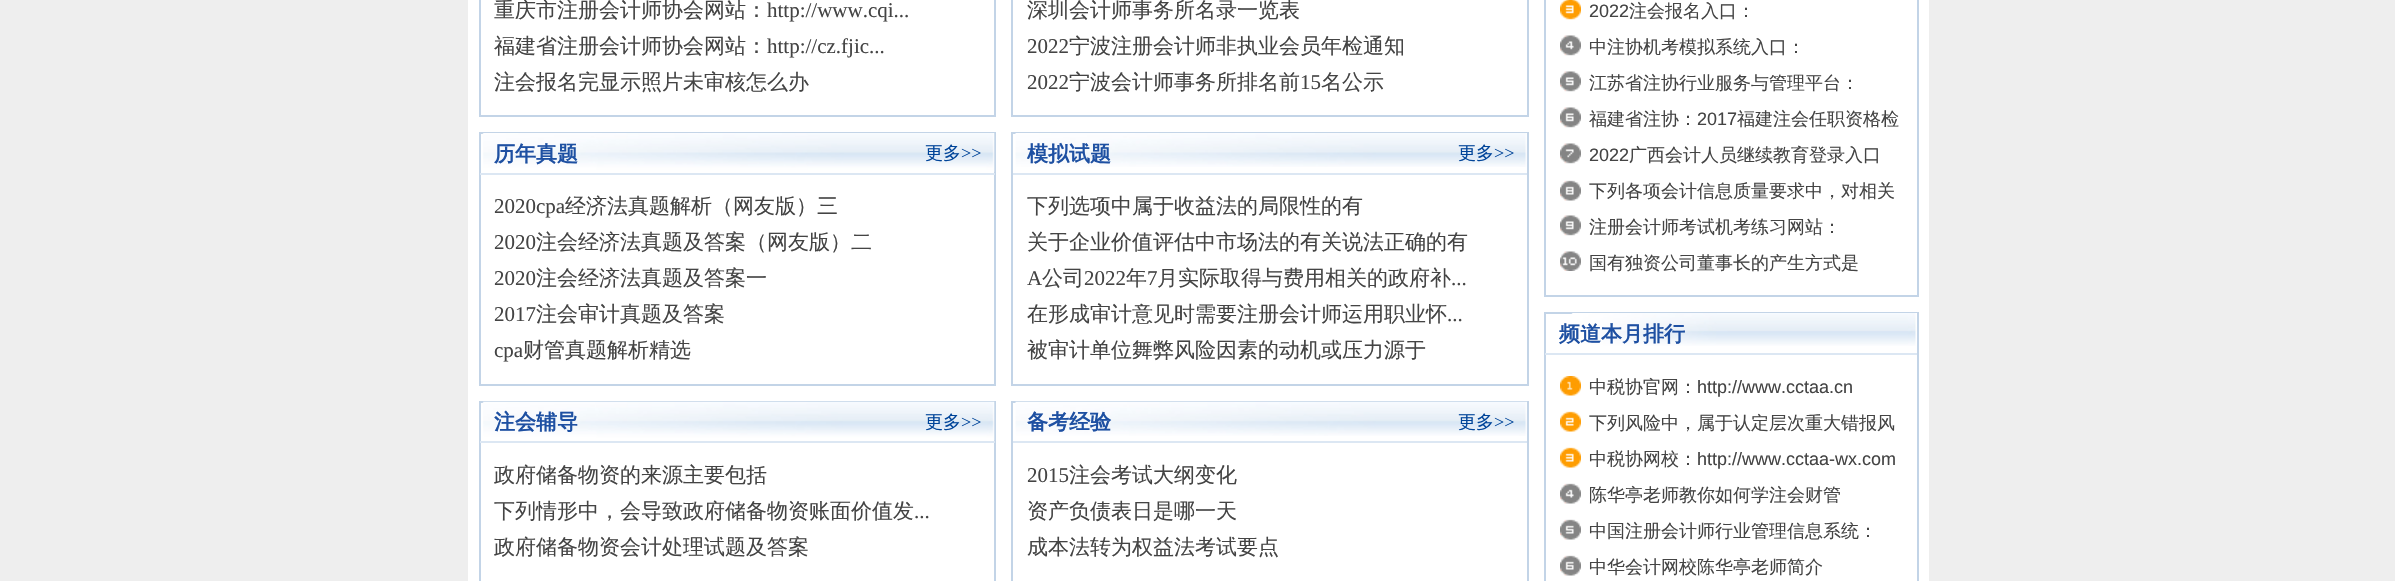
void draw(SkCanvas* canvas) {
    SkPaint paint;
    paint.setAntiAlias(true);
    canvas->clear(0xFFEEEEEE);
    paint.setColor(0xFFFFFFFF);
    canvas->drawRect(SkRect::MakeXYWH(468, 0, 1461, 581), paint);
    paint.setStyle(SkPaint::kStroke_Style);
    paint.setStrokeWidth(2);
    paint.setColor(0xFFC3D4E7);
    canvas->drawRect(SkRect::MakeXYWH(480, -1, 515, 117), paint);
    SkFont font1(fontMgr->matchFamilyStyle("WenQuanYi Zen Hei", SkFontStyle(500, SkFontStyle::kNormal_Width, SkFontStyle::kUpright_Slant)), 21);
    font1.setSubpixel(true);
    paint.setStyle(SkPaint::kFill_Style);
    paint.setColor(0xFF444444);
    canvas->drawString("重庆市注册会计师协会网站：", 494, 17, font1, paint);
    SkFont font2(fontMgr->matchFamilyStyle("Liberation Serif", SkFontStyle::Normal()), 21);
    font2.setSubpixel(true);
    canvas->drawString("http://www.cqi...", 767, 17, font2, paint);
    canvas->drawString("福建省注册会计师协会网站：", 494, 53, font1, paint);
    canvas->drawString("http://cz.fjic...", 767, 53, font2, paint);
    canvas->drawString("注会报名完显示照片未审核怎么办", 494, 89, font1, paint);
    paint.setStyle(SkPaint::kStroke_Style);
    paint.setColor(0xFFC3D4E7);
    canvas->drawRect(SkRect::MakeXYWH(1012, -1, 516, 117), paint);
    paint.setStyle(SkPaint::kFill_Style);
    paint.setColor(0xFF444444);
    canvas->drawString("深圳会计师事务所名录一览表", 1027, 17, font1, paint);
    canvas->drawString("2022", 1027, 53, font2, paint);
    canvas->drawString("宁波注册会计师非执业会员年检通知", 1069, 53, font1, paint);
    canvas->drawString("2022", 1027, 89, font2, paint);
    canvas->drawString("宁波会计师事务所排名前", 1069, 89, font1, paint);
    canvas->drawString("15", 1300, 89, font2, paint);
    canvas->drawString("名公示", 1321, 89, font1, paint);
    paint.setStyle(SkPaint::kStroke_Style);
    paint.setColor(0xFFC3D4E7);
    canvas->drawRect(SkRect::MakeXYWH(480, 133, 515, 252), paint);
    canvas->drawImageRect(SkImages::DeferredFromEncodedData(SkData::MakeFromFileName("img1.png")), SkRect::MakeXYWH(482, 133, 513, 39), SkSamplingOptions());
    paint.setStyle(SkPaint::kFill_Style);
    paint.setColor(0xFFDCE7F3);
    canvas->drawRect(SkRect::MakeXYWH(480, 173, 515, 2), paint);
    SkFont font3(fontMgr->matchFamilyStyle("WenQuanYi Zen Hei", SkFontStyle::Bold()), 21);
    font3.setSubpixel(true);
    paint.setColor(0xFF1E50A2);
    canvas->drawString("历年真题", 494, 161, font3, paint);
    SkFont font4(fontMgr->matchFamilyStyle("WenQuanYi Zen Hei", SkFontStyle(500, SkFontStyle::kNormal_Width, SkFontStyle::kUpright_Slant)), 18);
    font4.setSubpixel(true);
    paint.setColor(0xFF004499);
    canvas->drawString("更多", 925, 159, font4, paint);
    SkFont font5(fontMgr->matchFamilyStyle("Liberation Serif", SkFontStyle::Normal()), 18);
    font5.setSubpixel(true);
    canvas->drawString(">>", 961, 159, font5, paint);
    paint.setColor(0xFF444444);
    canvas->drawString("2020cpa", 494, 213, font2, paint);
    canvas->drawString("经济法真题解析（网友版）三", 565, 213, font1, paint);
    canvas->drawString("2020", 494, 249, font2, paint);
    canvas->drawString("注会经济法真题及答案（网友版）二", 536, 249, font1, paint);
    canvas->drawString("2020", 494, 285, font2, paint);
    canvas->drawString("注会经济法真题及答案一", 536, 285, font1, paint);
    canvas->drawString("2017", 494, 321, font2, paint);
    canvas->drawString("注会审计真题及答案", 536, 321, font1, paint);
    canvas->drawString("cpa", 494, 357, font2, paint);
    canvas->drawString("财管真题解析精选", 523, 357, font1, paint);
    paint.setStyle(SkPaint::kStroke_Style);
    paint.setColor(0xFFC3D4E7);
    canvas->drawRect(SkRect::MakeXYWH(1012, 133, 516, 252), paint);
    canvas->drawImageRect(SkImages::DeferredFromEncodedData(SkData::MakeFromFileName("img2.png")), SkRect::MakeXYWH(1015, 133, 512, 34), SkSamplingOptions());
    paint.setStyle(SkPaint::kFill_Style);
    paint.setColor(0xFFDCE7F3);
    canvas->drawRect(SkRect::MakeXYWH(1013, 173, 514, 2), paint);
    paint.setColor(0xFF1E50A2);
    canvas->drawString("模拟试题", 1027, 161, font3, paint);
    paint.setColor(0xFF004499);
    canvas->drawString("更多", 1458, 159, font4, paint);
    canvas->drawString(">>", 1494, 159, font5, paint);
    paint.setColor(0xFF444444);
    canvas->drawString("下列选项中属于收益法的局限性的有", 1027, 213, font1, paint);
    canvas->drawString("关于企业价值评估中市场法的有关说法正确的有", 1027, 249, font1, paint);
    canvas->drawString("A", 1027, 285, font2, paint);
    canvas->drawString("公司", 1042, 285, font1, paint);
    canvas->drawString("2022", 1084, 285, font2, paint);
    canvas->drawString("年", 1126, 285, font1, paint);
    canvas->drawString("7", 1147, 285, font2, paint);
    canvas->drawString("月实际取得与费用相关的政府补", 1157, 285, font1, paint);
    canvas->drawString("...", 1451, 285, font2, paint);
    canvas->drawString("在形成审计意见时需要注册会计师运用职业怀", 1027, 321, font1, paint);
    canvas->drawString("...", 1447, 321, font2, paint);
    canvas->drawString("被审计单位舞弊风险因素的动机或压力源于", 1027, 357, font1, paint);
    paint.setStyle(SkPaint::kStroke_Style);
    paint.setColor(0xFFC3D4E7);
    canvas->drawRect(SkRect::MakeXYWH(480, 402, 515, 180), paint);
    canvas->drawImageRect(SkImages::DeferredFromEncodedData(SkData::MakeFromFileName("img3.png")), SkRect::MakeXYWH(482, 401, 513, 40), SkSamplingOptions());
    paint.setStyle(SkPaint::kFill_Style);
    paint.setColor(0xFFDCE7F3);
    canvas->drawRect(SkRect::MakeXYWH(480, 441, 515, 2), paint);
    paint.setColor(0xFF1E50A2);
    canvas->drawString("注会辅导", 494, 429, font3, paint);
    paint.setColor(0xFF004499);
    canvas->drawString("更多", 925, 428, font4, paint);
    canvas->drawString(">>", 961, 428, font5, paint);
    paint.setColor(0xFF444444);
    canvas->drawString("政府储备物资的来源主要包括", 494, 482, font1, paint);
    canvas->drawString("下列情形中，会导致政府储备物资账面价值发", 494, 518, font1, paint);
    canvas->drawString("...", 914, 518, font2, paint);
    canvas->drawString("政府储备物资会计处理试题及答案", 494, 554, font1, paint);
    paint.setStyle(SkPaint::kStroke_Style);
    paint.setColor(0xFFC3D4E7);
    canvas->drawRect(SkRect::MakeXYWH(1012, 402, 516, 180), paint);
    canvas->drawImageRect(SkImages::DeferredFromEncodedData(SkData::MakeFromFileName("img4.png")), SkRect::MakeXYWH(1015, 401, 512, 35), SkSamplingOptions());
    paint.setStyle(SkPaint::kFill_Style);
    paint.setColor(0xFFDCE7F3);
    canvas->drawRect(SkRect::MakeXYWH(1013, 441, 514, 2), paint);
    paint.setColor(0xFF1E50A2);
    canvas->drawString("备考经验", 1027, 429, font3, paint);
    paint.setColor(0xFF004499);
    canvas->drawString("更多", 1458, 428, font4, paint);
    canvas->drawString(">>", 1494, 428, font5, paint);
    paint.setColor(0xFF444444);
    canvas->drawString("2015", 1027, 482, font2, paint);
    canvas->drawString("注会考试大纲变化", 1069, 482, font1, paint);
    canvas->drawString("资产负债表日是哪一天", 1027, 518, font1, paint);
    canvas->drawString("成本法转为权益法考试要点", 1027, 554, font1, paint);
    paint.setStyle(SkPaint::kStroke_Style);
    paint.setColor(0xFFC3D4E7);
    canvas->drawRect(SkRect::MakeXYWH(1545, -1, 373, 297), paint);
    canvas->drawImageRect(SkImages::DeferredFromEncodedData(SkData::MakeFromFileName("img5.png")), SkRect::MakeXYWH(1560, 0, 21, 271), SkSamplingOptions());
    SkFont font6(fontMgr->matchFamilyStyle("Liberation Sans", SkFontStyle::Normal()), 18);
    font6.setSubpixel(true);
    paint.setStyle(SkPaint::kFill_Style);
    paint.setColor(0xFF444444);
    canvas->drawString("2022", 1589, 17, font6, paint);
    canvas->drawString("注会报名入口：", 1629, 17, font4, paint);
    canvas->drawString("中注协机考模拟系统入口：", 1589, 53, font4, paint);
    canvas->drawString("江苏省注协行业服务与管理平台：", 1589, 89, font4, paint);
    canvas->drawString("福建省注协：", 1589, 125, font4, paint);
    canvas->drawString("2017", 1697, 125, font6, paint);
    canvas->drawString("福建注会任职资格检", 1737, 125, font4, paint);
    canvas->drawString("2022", 1589, 161, font6, paint);
    canvas->drawString("广西会计人员继续教育登录入口", 1629, 161, font4, paint);
    canvas->drawString("下列各项会计信息质量要求中，对相关", 1589, 197, font4, paint);
    canvas->drawString("注册会计师考试机考练习网站：", 1589, 233, font4, paint);
    canvas->drawString("国有独资公司董事长的产生方式是", 1589, 269, font4, paint);
    paint.setStyle(SkPaint::kStroke_Style);
    paint.setColor(0xFFC3D4E7);
    canvas->drawRect(SkRect::MakeXYWH(1545, 313, 373, 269), paint);
    canvas->drawImageRect(SkImages::DeferredFromEncodedData(SkData::MakeFromFileName("img6.png")), SkRect::MakeXYWH(1571, 313, 346, 33), SkSamplingOptions());
    paint.setStyle(SkPaint::kFill_Style);
    paint.setColor(0xFFDCE7F3);
    canvas->drawRect(SkRect::MakeXYWH(1545, 353, 372, 2), paint);
    paint.setColor(0xFF1E50A2);
    canvas->drawString("频道本月排行", 1559, 341, font3, paint);
    canvas->drawImageRect(SkImages::DeferredFromEncodedData(SkData::MakeFromFileName("img7.png")), SkRect::MakeXYWH(1560, 376, 21, 200), SkSamplingOptions());
    paint.setColor(0xFF444444);
    canvas->drawString("中税协官网：", 1589, 393, font4, paint);
    canvas->drawString("http://www.cctaa.cn", 1697, 393, font6, paint);
    canvas->drawString("下列风险中，属于认定层次重大错报风", 1589, 429, font4, paint);
    canvas->drawString("中税协网校：", 1589, 465, font4, paint);
    canvas->drawString("http://www.cctaa-wx.com", 1697, 465, font6, paint);
    canvas->drawString("陈华亭老师教你如何学注会财管", 1589, 501, font4, paint);
    canvas->drawString("中国注册会计师行业管理信息系统：", 1589, 537, font4, paint);
    canvas->drawString("中华会计网校陈华亭老师简介", 1589, 573, font4, paint);
}
